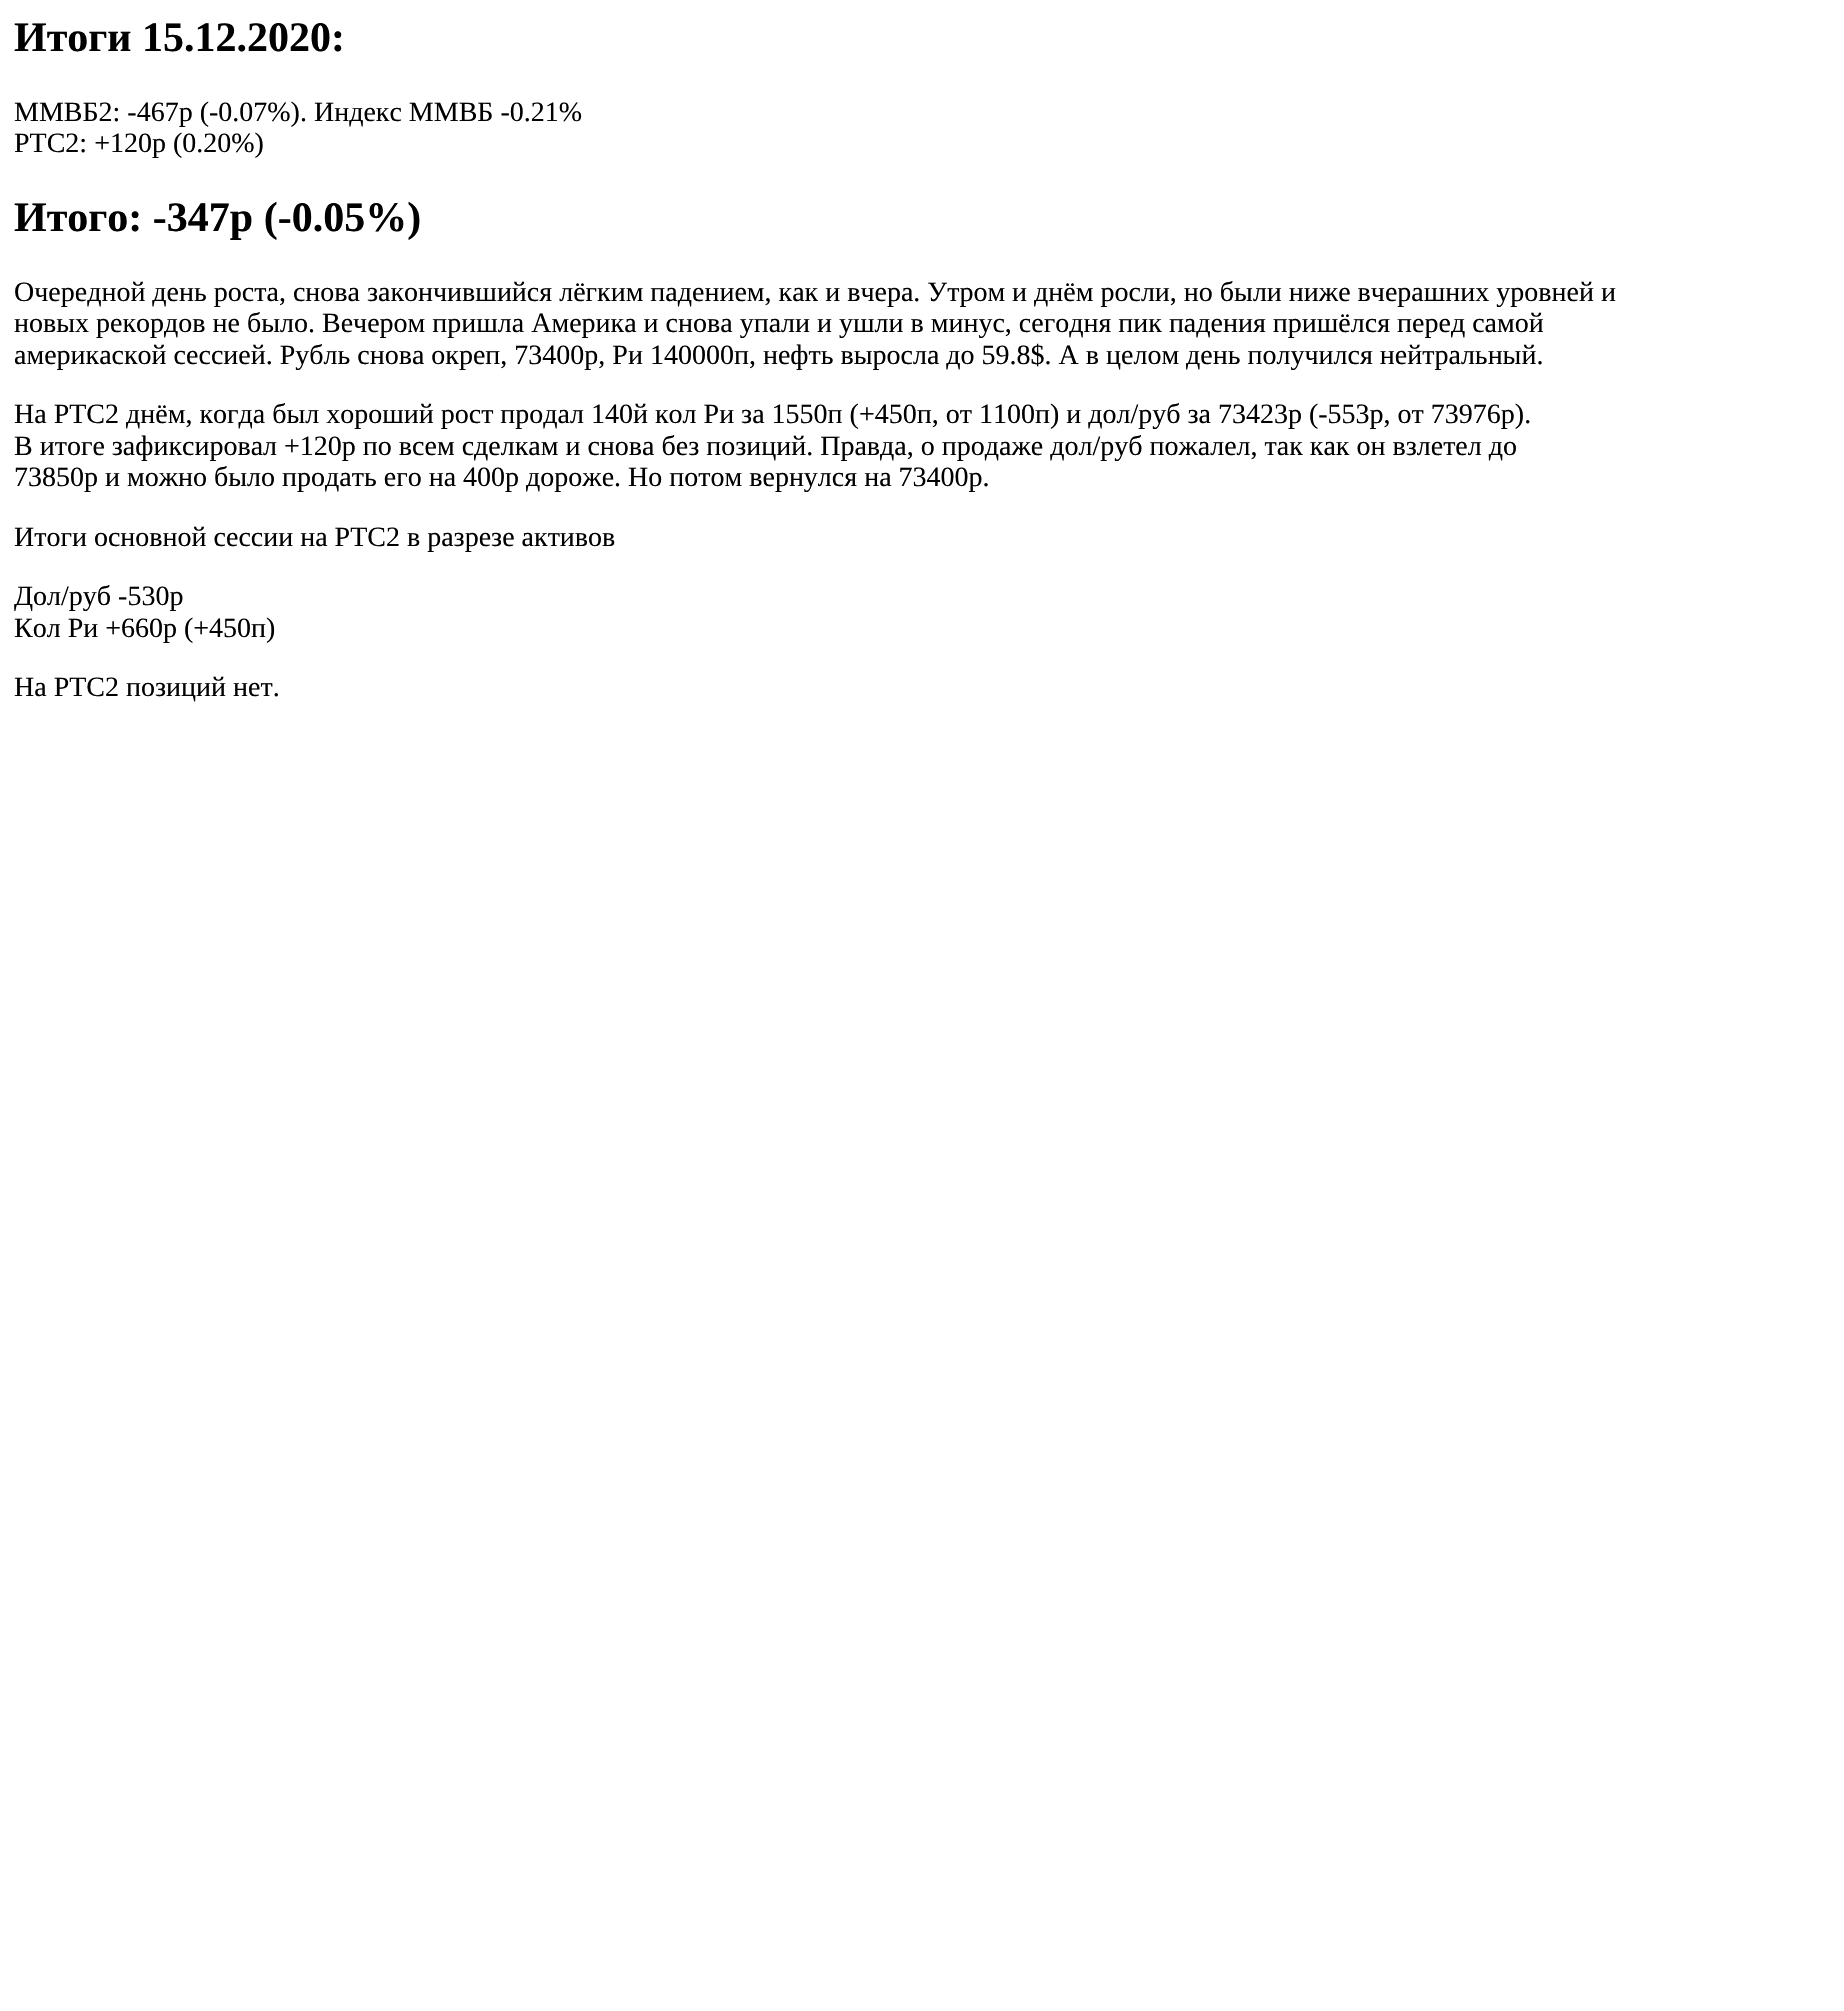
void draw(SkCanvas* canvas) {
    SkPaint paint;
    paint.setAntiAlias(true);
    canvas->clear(0xFFFFFFFF);
    SkFont font1(fontMgr->matchFamilyStyle("Liberation Serif", SkFontStyle::Bold()), 42);
    font1.setSubpixel(true);
    paint.setColor(0xFF000000);
    canvas->drawString("Итоги 15.12.2020:", 14, 51, font1, paint);
    SkFont font2(fontMgr->matchFamilyStyle("Liberation Serif", SkFontStyle::Normal()), 28);
    font2.setSubpixel(true);
    canvas->drawString("ММВБ2: -467р (-0.07%). Индекс ММВБ -0.21%", 14, 121, font2, paint);
    canvas->drawString("РТС2: +120р (0.20%)", 14, 152, font2, paint);
    canvas->drawString("Итого: -347р (-0.05%)", 14, 231, font1, paint);
    canvas->drawString("Очередной день роста, снова закончившийся лёгким падением, как и вчера. Утром и днём росли, но были ниже вчерашних уровней и", 14, 301, font2, paint);
    canvas->drawString("новых рекордов не было. Вечером пришла Америка и снова упали и ушли в минус, сегодня пик падения пришёлся перед самой", 14, 332, font2, paint);
    canvas->drawString("америкаской сессией. Рубль снова окреп, 73400р, Ри 140000п, нефть выросла до 59.8$. А в целом день получился нейтральный.", 14, 364, font2, paint);
    canvas->drawString("На РТС2 днём, когда был хороший рост продал 140й кол Ри за 1550п (+450п, от 1100п) и дол/руб за 73423р (-553р, от 73976р).", 14, 423, font2, paint);
    canvas->drawString("В итоге зафиксировал +120р по всем сделкам и снова без позиций. Правда, о продаже дол/руб пожалел, так как он взлетел до", 14, 455, font2, paint);
    canvas->drawString("73850р и можно было продать его на 400р дороже. Но потом вернулся на 73400р.", 14, 486, font2, paint);
    canvas->drawString("Итоги основной сессии на РТС2 в разрезе активов", 14, 546, font2, paint);
    canvas->drawString("Дол/руб -530р", 14, 605, font2, paint);
    canvas->drawString("Кол Ри +660р (+450п)", 14, 637, font2, paint);
    canvas->drawString("На РТС2 позиций нет.", 14, 696, font2, paint);
}
